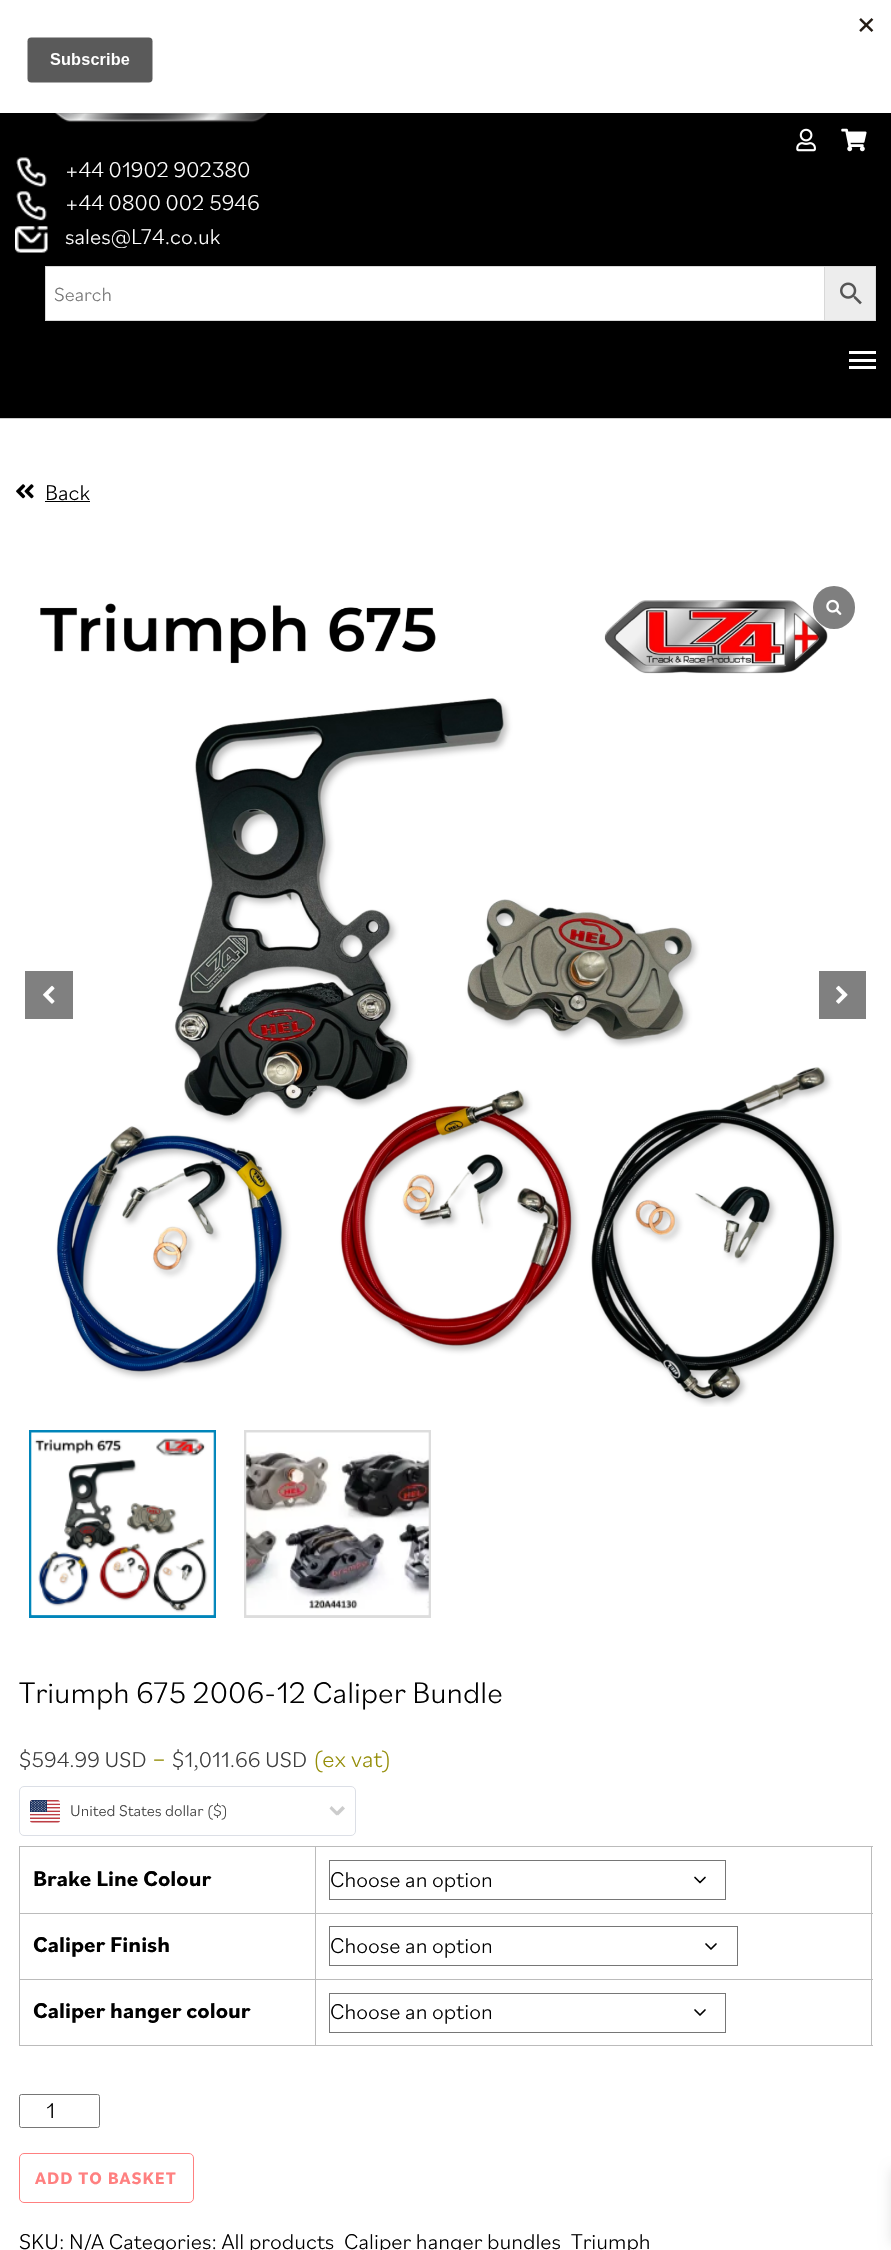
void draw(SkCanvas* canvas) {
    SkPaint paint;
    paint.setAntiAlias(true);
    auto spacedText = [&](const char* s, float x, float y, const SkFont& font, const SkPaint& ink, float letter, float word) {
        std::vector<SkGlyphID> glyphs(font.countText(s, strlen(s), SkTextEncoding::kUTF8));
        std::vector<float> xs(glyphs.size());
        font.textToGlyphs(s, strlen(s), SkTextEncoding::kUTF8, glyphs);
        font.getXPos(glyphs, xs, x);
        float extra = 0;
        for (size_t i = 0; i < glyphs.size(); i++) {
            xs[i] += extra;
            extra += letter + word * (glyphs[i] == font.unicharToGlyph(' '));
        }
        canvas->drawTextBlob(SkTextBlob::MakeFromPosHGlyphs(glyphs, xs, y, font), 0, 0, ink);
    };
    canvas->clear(0xFFFFFFFF);
    paint.setColor(0xFF000000);
    canvas->drawRect(SkRect::MakeXYWH(0, 113, 891, 305), paint);
    canvas->drawImageRect(SkImages::DeferredFromEncodedData(SkData::MakeFromFileName("img2.png")), SkRect::MakeXYWH(796, 128, 20, 24), SkSamplingOptions());
    canvas->drawImageRect(SkImages::DeferredFromEncodedData(SkData::MakeFromFileName("img3.png")), SkRect::MakeXYWH(841, 128, 26, 24), SkSamplingOptions());
    canvas->drawImageRect(SkImages::DeferredFromEncodedData(SkData::MakeFromFileName("img4.png")), SkRect::MakeXYWH(55, 113, 213, 10), SkSamplingOptions());
    paint.setColor(0x33000000);
    paint.setMaskFilter(SkMaskFilter::MakeBlur(kNormal_SkBlurStyle, 4));
    canvas->drawRect(SkRect::MakeXYWH(0, 4, 891, 112), paint);
    paint.setMaskFilter(nullptr);
    paint.setColor(0xFFFFFFFF);
    canvas->drawRect(SkRect::MakeXYWH(0, 0, 891, 113), paint);
    canvas->drawImageRect(SkImages::DeferredFromEncodedData(SkData::MakeFromFileName("img1.png")), SkRect::MakeXYWH(27, 18, 847, 65), SkSamplingOptions());
    paint.setColor(0xFFCCCCCC);
    canvas->drawRect(SkRect::MakeXYWH(0, 418, 891, 1), paint);
    canvas->drawImageRect(SkImages::DeferredFromEncodedData(SkData::MakeFromFileName("img5.png")), SkRect::MakeXYWH(16, 157, 31, 30), SkSamplingOptions());
    SkFont font1(fontMgr->matchFamilyStyle("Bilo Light", SkFontStyle(300, SkFontStyle::kNormal_Width, SkFontStyle::kUpright_Slant)), 22.5f);
    font1.setSubpixel(true);
    paint.setColor(0xFFFFFFFF);
    canvas->drawString("+44 01902 902380", 65, 177, font1, paint);
    canvas->drawImageRect(SkImages::DeferredFromEncodedData(SkData::MakeFromFileName("img6.png")), SkRect::MakeXYWH(16, 191, 31, 30), SkSamplingOptions());
    canvas->drawString("+44 0800 002 5946", 65, 210, font1, paint);
    canvas->drawImageRect(SkImages::DeferredFromEncodedData(SkData::MakeFromFileName("img7.png")), SkRect::MakeXYWH(15, 226, 33, 27), SkSamplingOptions());
    canvas->drawString("sales@L74.co.uk", 65, 244, font1, paint);
    paint.setColor(0xFFEDEDED);
    canvas->drawRect(SkRect::MakeXYWH(824.5f, 266.5f, 51, 54), paint);
    paint.setStyle(SkPaint::kStroke_Style);
    paint.setStrokeWidth(1);
    paint.setColor(0xFFD8D8D8);
    canvas->drawRect(SkRect::MakeXYWH(824.5f, 266.5f, 51, 54), paint);
    paint.setStyle(SkPaint::kFill_Style);
    paint.setColor(0xFFFFFFFF);
    canvas->drawRect(SkRect::MakeXYWH(45.5f, 266.5f, 779, 54), paint);
    paint.setStyle(SkPaint::kStroke_Style);
    paint.setColor(0xFFD8D8D8);
    canvas->drawRect(SkRect::MakeXYWH(45.5f, 266.5f, 779, 54), paint);
    SkFont font2(fontMgr->matchFamilyStyle("Bilo Light", SkFontStyle(300, SkFontStyle::kNormal_Width, SkFontStyle::kUpright_Slant)), 20);
    font2.setSubpixel(true);
    paint.setStyle(SkPaint::kFill_Style);
    paint.setColor(0xFF757575);
    canvas->drawString("Search", 54, 301, font2, paint);
    canvas->drawImageRect(SkImages::DeferredFromEncodedData(SkData::MakeFromFileName("img8.png")), SkRect::MakeXYWH(840, 282, 22, 23), SkSamplingOptions());
    paint.setColor(0xFFFFFFFF);
    canvas->drawRect(SkRect::MakeXYWH(849, 351, 27, 3), paint);
    canvas->drawRect(SkRect::MakeXYWH(849, 359, 27, 3), paint);
    canvas->drawRect(SkRect::MakeXYWH(849, 366, 27, 3), paint);
    canvas->drawImageRect(SkImages::DeferredFromEncodedData(SkData::MakeFromFileName("img9.png")), SkRect::MakeXYWH(16, 484, 18, 15), SkSamplingOptions());
    paint.setColor(0xFF000000);
    canvas->drawString("Back", 45, 500, font1, paint);
    canvas->drawRect(SkRect::MakeXYWH(45, 501, 45, 1), paint);
    canvas->drawImageRect(SkImages::DeferredFromEncodedData(SkData::MakeFromFileName("img11.png")), SkRect::MakeXYWH(40, 600, 802, 807), SkSamplingOptions());
    paint.setColor(0xFF7F7F7F);
    canvas->drawRoundRect(SkRect::MakeXYWH(813, 586, 42, 43), 21, 21, paint);
    canvas->drawImageRect(SkImages::DeferredFromEncodedData(SkData::MakeFromFileName("img10.png")), SkRect::MakeXYWH(826, 599, 16, 16), SkSamplingOptions());
    paint.setColor(0xFF808080);
    canvas->drawRect(SkRect::MakeXYWH(25, 971, 48, 48), paint);
    canvas->drawImageRect(SkImages::DeferredFromEncodedData(SkData::MakeFromFileName("img12.png")), SkRect::MakeXYWH(43, 985, 12, 19), SkSamplingOptions());
    canvas->drawRect(SkRect::MakeXYWH(819, 971, 47, 48), paint);
    canvas->drawImageRect(SkImages::DeferredFromEncodedData(SkData::MakeFromFileName("img13.png")), SkRect::MakeXYWH(836, 985, 12, 19), SkSamplingOptions());
    paint.setStyle(SkPaint::kStroke_Style);
    paint.setStrokeWidth(3);
    paint.setColor(0xFF0085BA);
    canvas->drawRect(SkRect::MakeXYWH(30.5f, 1431.5f, 184, 185), paint);
    canvas->drawImageRect(SkImages::DeferredFromEncodedData(SkData::MakeFromFileName("img14.png")), SkRect::MakeXYWH(31, 1432, 184, 184), SkSamplingOptions());
    paint.setColor(0xFFDDDDDD);
    canvas->drawRect(SkRect::MakeXYWH(245.5f, 1431.5f, 184, 185), paint);
    canvas->drawImageRect(SkImages::DeferredFromEncodedData(SkData::MakeFromFileName("img15.png")), SkRect::MakeXYWH(246, 1432, 184, 184), SkSamplingOptions());
    SkFont font3(fontMgr->matchFamilyStyle("Bilo Light", SkFontStyle(300, SkFontStyle::kNormal_Width, SkFontStyle::kUpright_Slant)), 31.25f);
    font3.setSubpixel(true);
    paint.setStyle(SkPaint::kFill_Style);
    paint.setColor(0xFF000000);
    canvas->drawString("Triumph 675 2006-12 Caliper Bundle", 19, 1703, font3, paint);
    paint.setColor(0xFF3D3D3D);
    canvas->drawString("$594.99 USD", 19, 1767, font1, paint);
    SkFont font4(fontMgr->matchFamilyStyle("Bilo Light", SkFontStyle(300, SkFontStyle::kNormal_Width, SkFontStyle::kUpright_Slant)), 28);
    font4.setSubpixel(true);
    paint.setColor(0xFF958E09);
    canvas->drawString("–", 152, 1767, font4, paint);
    paint.setColor(0xFF3D3D3D);
    canvas->drawString("$1,011.66 USD", 172, 1767, font1, paint);
    SkFont font5(fontMgr->matchFamilyStyle("Bilo Light", SkFontStyle(300, SkFontStyle::kNormal_Width, SkFontStyle::kUpright_Slant)), 24.5f);
    font5.setSubpixel(true);
    paint.setColor(0xFF958E09);
    canvas->drawString("(ex vat)", 313, 1767, font5, paint);
    paint.setStyle(SkPaint::kStroke_Style);
    paint.setStrokeWidth(1);
    paint.setColor(0xFFDCDFE6);
    canvas->drawRoundRect(SkRect::MakeXYWH(19.5f, 1786.5f, 336, 49), 4.5f, 4.5f, paint);
    canvas->drawImageRect(SkImages::DeferredFromEncodedData(SkData::MakeFromFileName("img16.png")), SkRect::MakeXYWH(30, 1800, 30, 23), SkSamplingOptions());
    SkFont font6(fontMgr->matchFamilyStyle("Bilo Light", SkFontStyle(300, SkFontStyle::kNormal_Width, SkFontStyle::kUpright_Slant)), 16.25f);
    font6.setSubpixel(true);
    paint.setStyle(SkPaint::kFill_Style);
    paint.setColor(0xFF3D3D3D);
    canvas->drawString("United States dollar ($)", 70, 1816, font6, paint);
    paint.setColor(0xFFCCCCCC);
    canvas->drawPath(SkPathBuilder().moveTo(329.5f, 1808.5f).lineTo(331.5f, 1806).lineTo(338.5f, 1813).lineTo(336.5f, 1815.5f).close().detach(), paint);
    canvas->drawPath(SkPathBuilder().moveTo(342.5f, 1806).lineTo(345, 1808.5f).lineTo(338, 1815.5f).lineTo(335.5f, 1813).close().detach(), paint);
    paint.setColor(0xFFBBBBBB);
    canvas->drawRect(SkRect::MakeXYWH(315, 1846, 558, 1), paint);
    canvas->drawRect(SkRect::MakeXYWH(315, 1913, 558, 1), paint);
    canvas->drawRect(SkRect::MakeXYWH(315, 1979, 558, 1), paint);
    canvas->drawRect(SkRect::MakeXYWH(871, 1979, 1, 67), paint);
    canvas->drawRect(SkRect::MakeXYWH(315, 2045, 558, 1), paint);
    canvas->drawRect(SkRect::MakeXYWH(315, 1979, 1, 67), paint);
    canvas->drawRect(SkRect::MakeXYWH(19, 1979, 297, 1), paint);
    canvas->drawRect(SkRect::MakeXYWH(315, 1913, 1, 67), paint);
    canvas->drawRect(SkRect::MakeXYWH(19, 1913, 297, 1), paint);
    canvas->drawRect(SkRect::MakeXYWH(315, 1846, 1, 68), paint);
    canvas->drawRect(SkRect::MakeXYWH(19, 1846, 297, 1), paint);
    canvas->drawRect(SkRect::MakeXYWH(19, 2045, 297, 1), paint);
    canvas->drawRect(SkRect::MakeXYWH(19, 1979, 1, 67), paint);
    canvas->drawRect(SkRect::MakeXYWH(19, 1913, 1, 67), paint);
    canvas->drawRect(SkRect::MakeXYWH(19, 1846, 1, 68), paint);
    SkFont font7(fontMgr->matchFamilyStyle("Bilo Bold", SkFontStyle::Bold()), 22.5f);
    font7.setSubpixel(true);
    paint.setColor(0xFF000000);
    canvas->drawString("Brake Line Colour", 33, 1886, font7, paint);
    paint.setColor(0xFFBBBBBB);
    canvas->drawRect(SkRect::MakeXYWH(871, 1913, 1, 67), paint);
    canvas->drawRect(SkRect::MakeXYWH(871, 1846, 1, 68), paint);
    paint.setStyle(SkPaint::kStroke_Style);
    paint.setStrokeWidth(1.7f);
    paint.setStrokeCap(SkPaint::kRound_Cap);
    paint.setStrokeJoin(SkPaint::kRound_Join);
    paint.setColor(0xFF000000);
    canvas->drawPath(SkPathBuilder().moveTo(695, 1877.5f).lineTo(700, 1882.5f).lineTo(705, 1877.5f).detach(), paint);
    paint.setStrokeWidth(1);
    paint.setStrokeCap(SkPaint::kButt_Cap);
    paint.setStrokeJoin(SkPaint::kMiter_Join);
    paint.setColor(0xFF767676);
    canvas->drawRect(SkRect::MakeXYWH(329.5f, 1860.5f, 396, 39), paint);
    paint.setStyle(SkPaint::kFill_Style);
    paint.setColor(0xFF000000);
    canvas->drawString("Choose an option", 330, 1887, font1, paint);
    canvas->drawString("Caliper Finish", 33, 1952, font7, paint);
    paint.setStyle(SkPaint::kStroke_Style);
    paint.setStrokeWidth(1.7f);
    paint.setStrokeCap(SkPaint::kRound_Cap);
    paint.setStrokeJoin(SkPaint::kRound_Join);
    canvas->drawPath(SkPathBuilder().moveTo(706, 1944).lineTo(711, 1949).lineTo(716, 1944).detach(), paint);
    paint.setStrokeWidth(1);
    paint.setStrokeCap(SkPaint::kButt_Cap);
    paint.setStrokeJoin(SkPaint::kMiter_Join);
    paint.setColor(0xFF767676);
    canvas->drawRect(SkRect::MakeXYWH(329.5f, 1926.5f, 408, 39), paint);
    paint.setStyle(SkPaint::kFill_Style);
    paint.setColor(0xFF000000);
    canvas->drawString("Choose an option", 330, 1953, font1, paint);
    canvas->drawString("Caliper hanger colour", 33, 2018, font7, paint);
    paint.setStyle(SkPaint::kStroke_Style);
    paint.setStrokeWidth(1.7f);
    paint.setStrokeCap(SkPaint::kRound_Cap);
    paint.setStrokeJoin(SkPaint::kRound_Join);
    canvas->drawPath(SkPathBuilder().moveTo(695, 2010).lineTo(700, 2015).lineTo(705, 2010).detach(), paint);
    paint.setStrokeWidth(1);
    paint.setStrokeCap(SkPaint::kButt_Cap);
    paint.setStrokeJoin(SkPaint::kMiter_Join);
    paint.setColor(0xFF767676);
    canvas->drawRect(SkRect::MakeXYWH(329.5f, 1993.5f, 396, 39), paint);
    paint.setStyle(SkPaint::kFill_Style);
    paint.setColor(0xFF000000);
    canvas->drawString("Choose an option", 330, 2019, font1, paint);
    paint.setStyle(SkPaint::kStroke_Style);
    paint.setColor(0xFF767676);
    canvas->drawRoundRect(SkRect::MakeXYWH(19.5f, 2094.5f, 80, 33), 2, 2, paint);
    paint.setStyle(SkPaint::kFill_Style);
    paint.setColor(0xFF000000);
    canvas->drawString("1", 46, 2118, font1, paint);
    paint.setStyle(SkPaint::kStroke_Style);
    paint.setColor(0xFFFF8080);
    canvas->drawRoundRect(SkRect::MakeXYWH(19.5f, 2153.5f, 174, 49), 4.5f, 4.5f, paint);
    SkFont font8(fontMgr->matchFamilyStyle("Bilo Bold", SkFontStyle::Bold()), 17.5f);
    font8.setSubpixel(true);
    paint.setStyle(SkPaint::kFill_Style);
    spacedText("ADD TO BASKET", 35, 2184, font8, paint, 1, 0);
    paint.setColor(0xFF000000);
    canvas->drawString("SKU: N/A Categories: All products", 19, 2249, font1, paint);
    canvas->drawString("Caliper hanger bundles", 344, 2249, font1, paint);
    canvas->drawString("Triumph", 571, 2249, font1, paint);
    paint.setColor(0x1A000000);
    paint.setMaskFilter(SkMaskFilter::MakeBlur(kNormal_SkBlurStyle, 6));
    canvas->drawRect(SkRect::MakeXYWH(891, 2169, 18, 75), paint);
    paint.setMaskFilter(nullptr);
}
